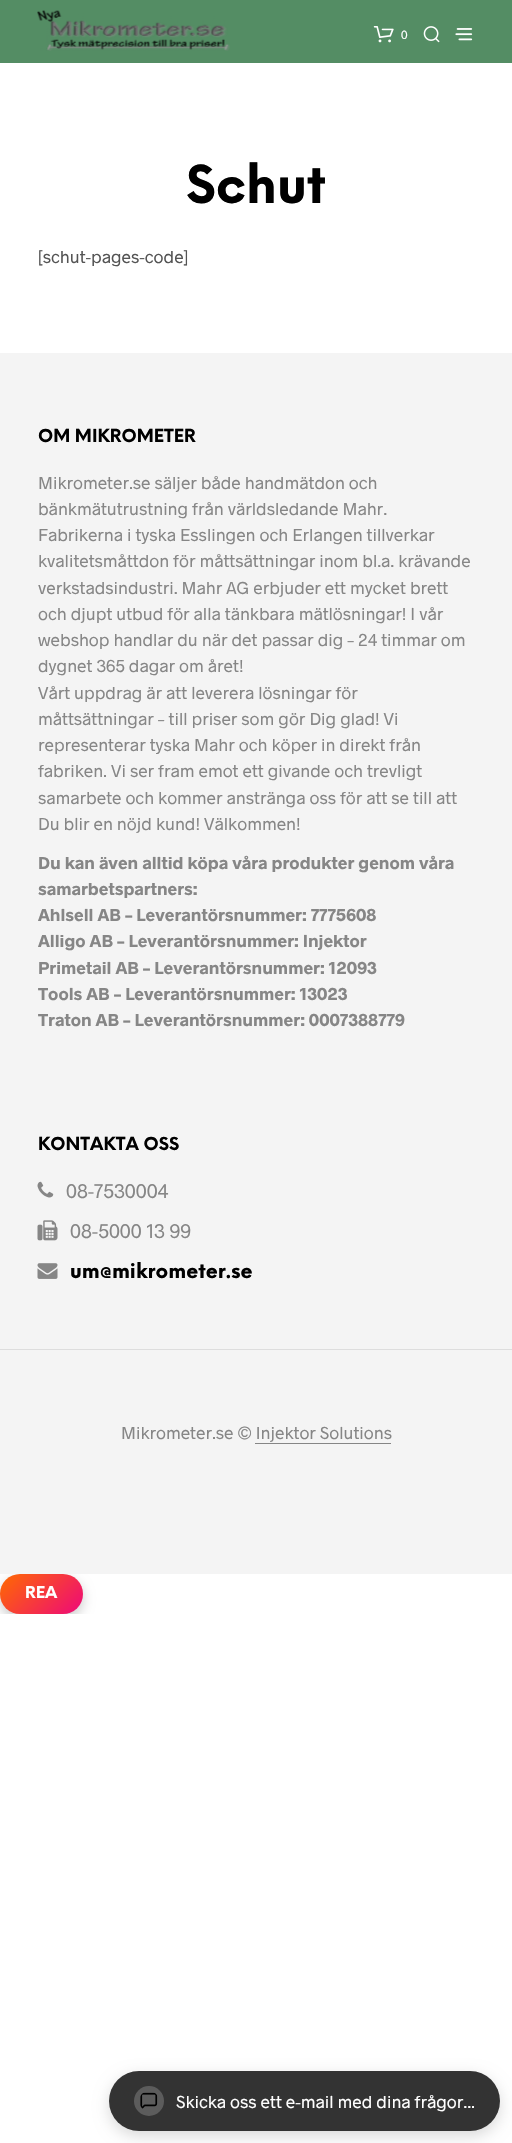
void draw(SkCanvas* canvas) {
    SkPaint paint;
    paint.setAntiAlias(true);
    canvas->clear(0xFFFFFFFF);
    paint.setColor(0xFF548D64);
    canvas->drawRect(SkRect::MakeXYWH(0, 0, 512, 63), paint);
    canvas->drawImageRect(SkImages::DeferredFromEncodedData(SkData::MakeFromFileName("img1.png")), SkRect::MakeXYWH(37, 10, 193, 41), SkSamplingOptions());
    canvas->drawImageRect(SkImages::DeferredFromEncodedData(SkData::MakeFromFileName("img2.png")), SkRect::MakeXYWH(373, 26, 21, 17), SkSamplingOptions());
    SkFont font1(fontMgr->matchFamilyStyle("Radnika", SkFontStyle::Normal()), 12);
    font1.setSubpixel(true);
    paint.setColor(0xFFFFFFFF);
    canvas->drawString("0", 401, 39, font1, paint);
    canvas->drawImageRect(SkImages::DeferredFromEncodedData(SkData::MakeFromFileName("img3.png")), SkRect::MakeXYWH(423, 26, 17, 17), SkSamplingOptions());
    canvas->drawImageRect(SkImages::DeferredFromEncodedData(SkData::MakeFromFileName("img4.png")), SkRect::MakeXYWH(455, 28, 18, 13), SkSamplingOptions());
    SkFont font2(fontMgr->matchFamilyStyle("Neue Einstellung", SkFontStyle::Bold()), 51);
    font2.setSubpixel(true);
    paint.setColor(0xFF000000);
    canvas->drawString("Schut", 186, 203, font2, paint);
    SkFont font3(fontMgr->matchFamilyStyle("Radnika", SkFontStyle::Normal()), 17.5f);
    font3.setSubpixel(true);
    paint.setColor(0xFF545454);
    canvas->drawString("[schut-pages-code]", 38, 263, font3, paint);
    canvas->save();
    canvas->clipRect(SkRect::MakeXYWH(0, 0, 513, 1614));
    paint.setColor(0x33000000);
    paint.setMaskFilter(SkMaskFilter::MakeBlur(kNormal_SkBlurStyle, 6));
    canvas->drawRoundRect(SkRect::MakeXYWH(0, 1579, 83, 40), 20, 20, paint);
    paint.setMaskFilter(nullptr);
    canvas->restore();
    paint.setColor(0xFFF4F4F4);
    canvas->drawRect(SkRect::MakeXYWH(0, 353, 512, 1221), paint);
    paint.setColor(0xFFDDDDDD);
    canvas->drawRect(SkRect::MakeXYWH(0, 1349, 512, 1), paint);
    SkFont font4(fontMgr->matchFamilyStyle("Neue Einstellung", SkFontStyle::Bold()), 17.5f);
    font4.setSubpixel(true);
    paint.setColor(0xFF000000);
    canvas->drawString("OM MIKROMETER", 38, 442, font4, paint);
    paint.setColor(0xFF868686);
    canvas->drawString("Mikrometer.se säljer både handmätdon och", 38, 489, font3, paint);
    canvas->drawString("bänkmätutrustning från världsledande Mahr.", 38, 515, font3, paint);
    canvas->drawString("Fabrikerna i tyska Esslingen och Erlangen tillverkar", 38, 541, font3, paint);
    canvas->drawString("kvalitetsmåttdon för måttsättningar inom bl.a. krävande", 38, 567, font3, paint);
    canvas->drawString("verkstadsindustri. Mahr AG erbjuder ett mycket brett", 38, 594, font3, paint);
    canvas->drawString("och djupt utbud för alla tänkbara mätlösningar! I vår", 38, 620, font3, paint);
    canvas->drawString("webshop handlar du när det passar dig – 24 timmar om", 38, 646, font3, paint);
    canvas->drawString("dygnet 365 dagar om året!", 38, 672, font3, paint);
    canvas->drawString("Vårt uppdrag är att leverera lösningar för", 38, 699, font3, paint);
    canvas->drawString("måttsättningar – till priser som gör Dig glad! Vi", 38, 725, font3, paint);
    canvas->drawString("representerar tyska Mahr och köper in direkt från", 38, 751, font3, paint);
    canvas->drawString("fabriken. Vi ser fram emot ett givande och trevligt", 38, 777, font3, paint);
    canvas->drawString("samarbete och kommer anstränga oss för att se till att", 38, 804, font3, paint);
    canvas->drawString("Du blir en nöjd kund! Välkommen!", 38, 830, font3, paint);
    SkFont font5(fontMgr->matchFamilyStyle("Radnika", SkFontStyle::Bold()), 17.5f);
    font5.setSubpixel(true);
    canvas->drawString("Du kan även alltid köpa våra produkter genom våra", 38, 869, font5, paint);
    canvas->drawString("samarbetspartners:", 38, 895, font5, paint);
    canvas->drawString("Ahlsell AB – Leverantörsnummer: 7775608", 38, 921, font5, paint);
    canvas->drawString("Alligo AB – Leverantörsnummer: Injektor", 38, 947, font5, paint);
    canvas->drawString("Primetail AB – Leverantörsnummer: 12093", 38, 974, font5, paint);
    canvas->drawString("Tools AB – Leverantörsnummer: 13023", 38, 1000, font5, paint);
    canvas->drawString("Traton AB – Leverantörsnummer: 0007388779", 38, 1026, font5, paint);
    paint.setColor(0xFF000000);
    canvas->drawString("KONTAKTA OSS", 38, 1150, font4, paint);
    canvas->drawImageRect(SkImages::DeferredFromEncodedData(SkData::MakeFromFileName("img5.png")), SkRect::MakeXYWH(37, 1181, 17, 17), SkSamplingOptions());
    SkFont font6(fontMgr->matchFamilyStyle("Radnika", SkFontStyle::Normal()), 20);
    font6.setSubpixel(true);
    paint.setColor(0xFF868686);
    canvas->drawString("08-7530004", 66, 1198, font6, paint);
    canvas->drawImageRect(SkImages::DeferredFromEncodedData(SkData::MakeFromFileName("img6.png")), SkRect::MakeXYWH(37, 1220, 21, 21), SkSamplingOptions());
    canvas->drawString("08-5000 13 99", 70, 1238, font6, paint);
    canvas->drawImageRect(SkImages::DeferredFromEncodedData(SkData::MakeFromFileName("img7.png")), SkRect::MakeXYWH(37, 1263, 21, 16), SkSamplingOptions());
    SkFont font7(fontMgr->matchFamilyStyle("Neue Einstellung", SkFontStyle::Bold()), 20);
    font7.setSubpixel(true);
    paint.setColor(0xFF000000);
    canvas->drawString("um@mikrometer.se", 70, 1278, font7, paint);
    paint.setColor(0xFF868686);
    canvas->drawString("Mikrometer.se © Injektor Solutions", 121, 1439, font3, paint);
    canvas->drawRect(SkRect::MakeXYWH(255, 1443, 136, 1), paint);
    {
        const SkColor colors[] = {0xFFFF6A00, 0xFFEE0979};
        const float stops[] = {0, 1};
        const SkPoint ends[] = {{11, 1563}, {72, 1624}};
        paint.setShader(SkGradientShader::MakeLinear(ends, colors, stops, 2, SkTileMode::kClamp));
        paint.setAlpha(255);
    }
    canvas->drawRoundRect(SkRect::MakeXYWH(0, 1574, 83, 40), 20, 20, paint);
    SkFont font8(fontMgr->matchFamilyStyle("Neue Einstellung", SkFontStyle::Bold()), 16);
    font8.setSubpixel(true);
    paint.setShader(nullptr);
    paint.setColor(0xFFFFFFFF);
    canvas->drawString("REA", 25, 1598, font8, paint);
    paint.setColor(0x26000000);
    paint.setMaskFilter(SkMaskFilter::MakeBlur(kNormal_SkBlurStyle, 7.5f));
    canvas->drawRoundRect(SkRect::MakeXYWH(109, 2076, 391, 60), 30, 30, paint);
    paint.setMaskFilter(nullptr);
    paint.setColor(0xFF333333);
    canvas->drawRoundRect(SkRect::MakeXYWH(109, 2071, 391, 60), 30, 30, paint);
    paint.setColor(0xFF5C5C5C);
    canvas->drawCircle(149, 2101, 15, paint);
    canvas->drawImageRect(SkImages::DeferredFromEncodedData(SkData::MakeFromFileName("img8.png")), SkRect::MakeXYWH(140, 2092, 18, 17), SkSamplingOptions());
    paint.setColor(0xFFFFFFFF);
    canvas->drawString("Skicka oss ett e-mail med dina frågor...", 176, 2108, font3, paint);
}
